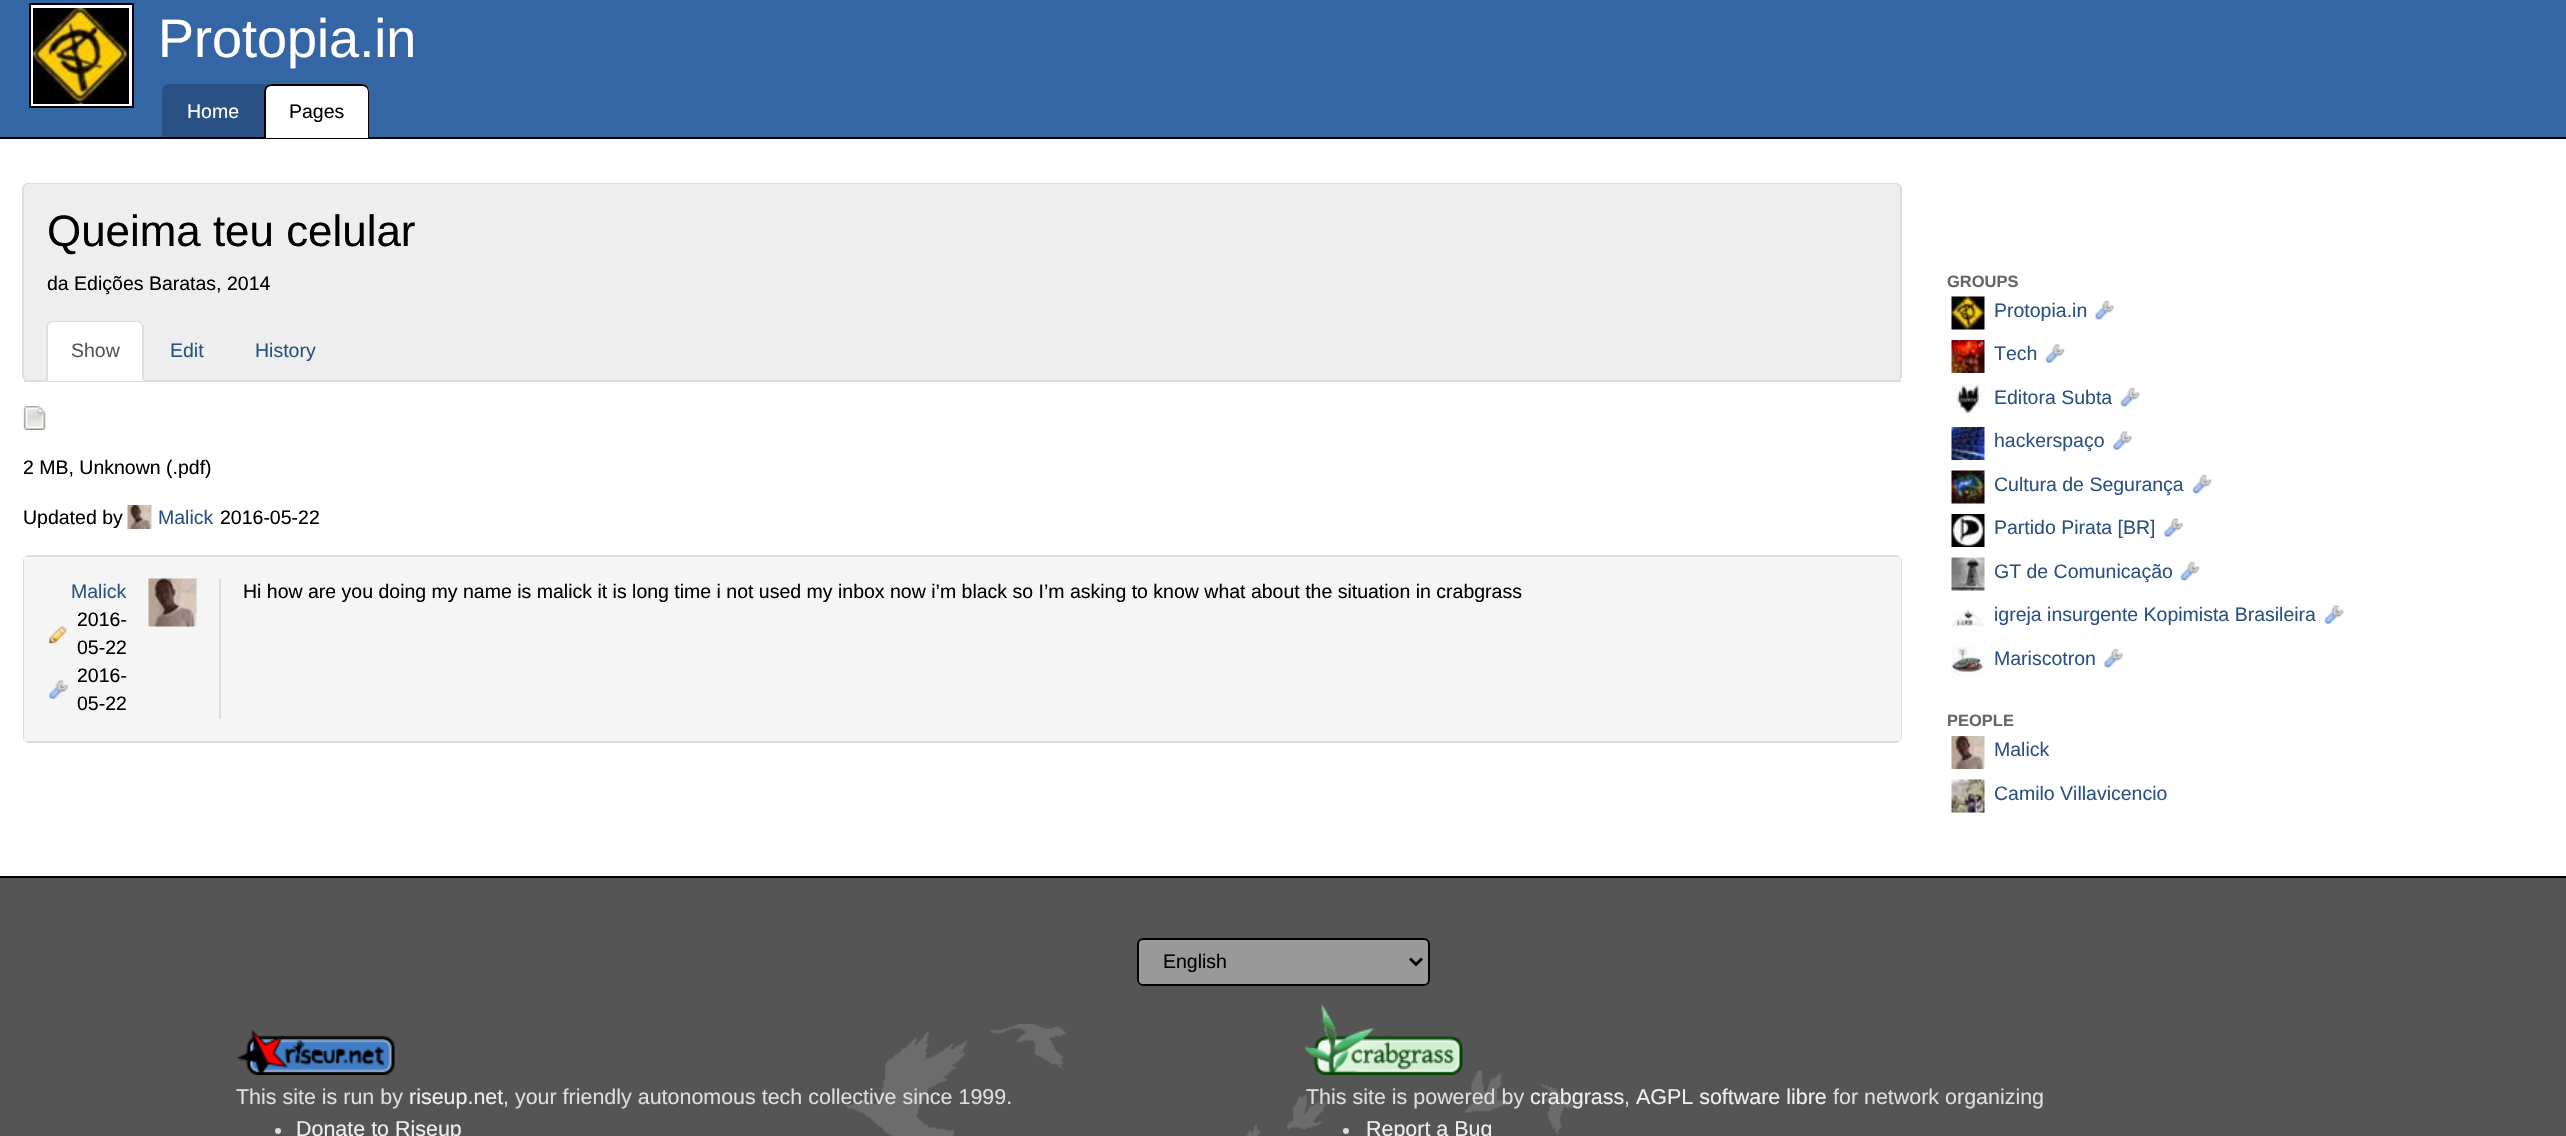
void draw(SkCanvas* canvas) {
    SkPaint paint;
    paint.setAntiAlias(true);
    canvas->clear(0xFF555555);
    paint.setColor(0xFFFFFFFF);
    canvas->drawRect(SkRect::MakeXYWH(0, 139, 2566, 737), paint);
    paint.setColor(0xFF000000);
    canvas->drawRect(SkRect::MakeXYWH(0, 876, 2566, 2), paint);
    paint.setColor(0xFF3465A4);
    canvas->drawRect(SkRect::MakeXYWH(0, 0, 2566, 137), paint);
    paint.setColor(0xFF000000);
    canvas->drawRect(SkRect::MakeXYWH(0, 137, 2566, 2), paint);
    canvas->drawImageRect(SkImages::DeferredFromEncodedData(SkData::MakeFromFileName("img1.png")), SkRect::MakeXYWH(33, 8, 96, 96), SkSamplingOptions());
    paint.setStyle(SkPaint::kStroke_Style);
    paint.setStrokeWidth(3);
    paint.setColor(0xFFFFFFFF);
    canvas->drawRect(SkRect::MakeXYWH(31.5f, 6.5f, 99, 99), paint);
    paint.setStrokeWidth(2);
    paint.setColor(0xFF000000);
    canvas->drawRect(SkRect::MakeXYWH(30, 4, 103, 103), paint);
    SkFont font1(fontMgr->matchFamilyStyle("Liberation Sans", SkFontStyle::Normal()), 54);
    font1.setSubpixel(true);
    paint.setStyle(SkPaint::kFill_Style);
    paint.setColor(0xFFFFFFFF);
    canvas->drawString("Protopia.in", 158, 57, font1, paint);
    paint.setColor(0x33000000);
    canvas->drawPath(SkPathBuilder().moveTo(170, 84).lineTo(264, 84).lineTo(264, 138).lineTo(162, 138).lineTo(162, 92).cubicTo(162, 87.5f, 165.5f, 84, 170, 84).close().detach(), paint);
    SkFont font2(fontMgr->matchFamilyStyle("Liberation Sans", SkFontStyle::Normal()), 19.5f);
    font2.setSubpixel(true);
    paint.setColor(0xFFFFFFFF);
    canvas->drawString("Home", 187, 118, font2, paint);
    paint.setColor(0x33000000);
    canvas->drawPath(SkPathBuilder().moveTo(264, 84).lineTo(361, 84).cubicTo(365.5f, 84, 369, 87.5f, 369, 92).lineTo(369, 138).lineTo(264, 138).close().detach(), paint);
    paint.setColor(0xFFFFFFFF);
    canvas->drawPath(SkPathBuilder().moveTo(272, 84).lineTo(361, 84).cubicTo(365.5f, 84, 369, 87.5f, 369, 92).lineTo(369, 138).lineTo(264, 138).lineTo(264, 92).cubicTo(264, 87.5f, 267.5f, 84, 272, 84).close().detach(), paint);
    paint.setColor(0xFF000000);
    canvas->drawPath(SkPathBuilder(SkPathFillType::kEvenOdd).moveTo(272, 84).lineTo(362, 84).cubicTo(366, 84, 369, 87, 369, 92).lineTo(369, 138).lineTo(264, 138).lineTo(264, 92).cubicTo(264, 87, 267, 84, 272, 84).close().moveTo(272, 86).lineTo(362, 86).cubicTo(365, 86, 368, 88, 368, 92).lineTo(368, 138).lineTo(266, 138).lineTo(266, 92).cubicTo(266, 88, 268, 86, 272, 86).close().detach(), paint);
    canvas->drawString("Pages", 289, 118, font2, paint);
    paint.setColor(0xFFEEEEEE);
    canvas->drawRoundRect(SkRect::MakeXYWH(23, 183, 1879, 198), 6, 6, paint);
    paint.setColor(0xFFDDDDDD);
    canvas->drawPath(SkPathBuilder(SkPathFillType::kEvenOdd).moveTo(28, 183).lineTo(1896, 183).cubicTo(1899, 183, 1902, 186, 1902, 189).lineTo(1902, 375).cubicTo(1902, 378, 1899, 381, 1896, 381).lineTo(28, 381).cubicTo(25, 381, 22, 378, 22, 375).lineTo(22, 189).cubicTo(22, 186, 25, 183, 28, 183).close().moveTo(28, 184).lineTo(1896, 184).cubicTo(1898, 184, 1900, 187, 1900, 189).lineTo(1900, 375).cubicTo(1900, 378, 1898, 381, 1896, 381).lineTo(28, 381).cubicTo(26, 381, 24, 378, 24, 375).lineTo(24, 189).cubicTo(24, 187, 26, 184, 28, 184).close().detach(), paint);
    SkFont font3(fontMgr->matchFamilyStyle("Liberation Sans", SkFontStyle::Normal()), 43.9f);
    font3.setSubpixel(true);
    paint.setColor(0xFF000000);
    canvas->drawString("Queima teu celular", 47, 246, font3, paint);
    canvas->drawString("da Edições Baratas, 2014", 47, 290, font2, paint);
    paint.setColor(0xFFDDDDDD);
    canvas->drawRect(SkRect::MakeXYWH(24, 380, 1877, 2), paint);
    paint.setColor(0xFFFFFFFF);
    canvas->drawPath(SkPathBuilder().moveTo(53, 321).lineTo(138, 321).cubicTo(141.5f, 321, 144, 323.5f, 144, 327).lineTo(144, 381).lineTo(47, 381).lineTo(47, 327).cubicTo(47, 323.5f, 49.5f, 321, 53, 321).close().detach(), paint);
    paint.setColor(0xFFDDDDDD);
    canvas->drawPath(SkPathBuilder().moveTo(52, 321).cubicTo(51, 321, 49, 322, 48, 323).lineTo(49, 324).lineTo(52, 322).lineTo(138, 322).lineTo(141, 324).lineTo(142, 323).cubicTo(141, 322, 140, 321, 138, 321).close().detach(), paint);
    canvas->drawPath(SkPathBuilder().moveTo(144, 381).lineTo(144, 327).cubicTo(144, 326, 143, 324, 142, 323).lineTo(141, 324).lineTo(142, 327).lineTo(142, 379).close().detach(), paint);
    canvas->drawPath(SkPathBuilder().moveTo(46, 381).lineTo(46, 325).lineTo(48, 323).lineTo(49, 324).cubicTo(48, 325, 48, 326, 48, 327).lineTo(48, 380).close().detach(), paint);
    paint.setColor(0xFF555555);
    canvas->drawString("Show", 71, 357, font2, paint);
    paint.setColor(0xFF2A5183);
    canvas->drawString("Edit", 170, 357, font2, paint);
    canvas->drawString("History", 255, 357, font2, paint);
    canvas->drawImageRect(SkImages::DeferredFromEncodedData(SkData::MakeFromFileName("img2.png")), SkRect::MakeXYWH(23, 406, 23, 24), SkSamplingOptions());
    paint.setColor(0xFF000000);
    canvas->drawString("2 MB, Unknown (.pdf)", 23, 474, font2, paint);
    canvas->drawString("Updated by", 23, 524, font2, paint);
    canvas->drawImageRect(SkImages::DeferredFromEncodedData(SkData::MakeFromFileName("img3.png")), SkRect::MakeXYWH(127, 505, 25, 24), SkSamplingOptions());
    paint.setColor(0xFF2A5183);
    canvas->drawString("Malick", 158, 524, font2, paint);
    paint.setColor(0xFF000000);
    canvas->drawString("2016-05-22", 220, 524, font2, paint);
    paint.setStyle(SkPaint::kStroke_Style);
    paint.setColor(0xFFDDDDDD);
    canvas->drawRoundRect(SkRect::MakeXYWH(24, 556, 1877, 186), 5, 5, paint);
    paint.setStyle(SkPaint::kFill_Style);
    paint.setColor(0xFFF5F5F5);
    canvas->drawRect(SkRect::MakeXYWH(24, 557, 1877, 184), paint);
    canvas->drawImageRect(SkImages::DeferredFromEncodedData(SkData::MakeFromFileName("img4.png")), SkRect::MakeXYWH(148, 578, 49, 49), SkSamplingOptions());
    paint.setColor(0xFF2A5183);
    canvas->drawString("Malick", 71, 598, font2, paint);
    canvas->drawImageRect(SkImages::DeferredFromEncodedData(SkData::MakeFromFileName("img5.png")), SkRect::MakeXYWH(49, 626, 18, 18), SkSamplingOptions());
    paint.setColor(0xFF000000);
    canvas->drawString("2016-", 77, 626, font2, paint);
    canvas->drawString("05-22", 77, 654, font2, paint);
    canvas->drawImageRect(SkImages::DeferredFromEncodedData(SkData::MakeFromFileName("img6.png")), SkRect::MakeXYWH(49, 680, 19, 19), SkSamplingOptions());
    canvas->drawString("2016-", 77, 682, font2, paint);
    canvas->drawString("05-22", 77, 710, font2, paint);
    paint.setColor(0xFFDDDDDD);
    canvas->drawRect(SkRect::MakeXYWH(219, 579, 2, 140), paint);
    paint.setColor(0xFF000000);
    canvas->drawString("Hi how are you doing my name is malick it is long time i not used my inbox now i’m black so I’m asking to know what about the situation in crabgrass", 243, 598, font2, paint);
    SkFont font4(fontMgr->matchFamilyStyle("Liberation Sans", SkFontStyle::Bold()), 16.5f);
    font4.setSubpixel(true);
    paint.setColor(0xFF666666);
    canvas->drawString("GROUPS", 1947, 287, font4, paint);
    canvas->drawImageRect(SkImages::DeferredFromEncodedData(SkData::MakeFromFileName("img7.png")), SkRect::MakeXYWH(1951, 296, 34, 34), SkSamplingOptions());
    paint.setColor(0xFF2A5183);
    canvas->drawString("Protopia.in", 1994, 317, font2, paint);
    canvas->drawImageRect(SkImages::DeferredFromEncodedData(SkData::MakeFromFileName("img8.png")), SkRect::MakeXYWH(2095, 300, 19, 20), SkSamplingOptions());
    canvas->drawImageRect(SkImages::DeferredFromEncodedData(SkData::MakeFromFileName("img9.png")), SkRect::MakeXYWH(1951, 340, 34, 33), SkSamplingOptions());
    canvas->drawString("Tech", 1994, 360, font2, paint);
    canvas->drawImageRect(SkImages::DeferredFromEncodedData(SkData::MakeFromFileName("img10.png")), SkRect::MakeXYWH(2045, 344, 20, 19), SkSamplingOptions());
    canvas->drawImageRect(SkImages::DeferredFromEncodedData(SkData::MakeFromFileName("img11.png")), SkRect::MakeXYWH(1951, 383, 33, 34), SkSamplingOptions());
    canvas->drawString("Editora Subta", 1994, 404, font2, paint);
    canvas->drawImageRect(SkImages::DeferredFromEncodedData(SkData::MakeFromFileName("img12.png")), SkRect::MakeXYWH(2120, 387, 20, 20), SkSamplingOptions());
    canvas->drawImageRect(SkImages::DeferredFromEncodedData(SkData::MakeFromFileName("img13.png")), SkRect::MakeXYWH(1951, 427, 34, 33), SkSamplingOptions());
    canvas->drawString("hackerspaço", 1994, 447, font2, paint);
    canvas->drawImageRect(SkImages::DeferredFromEncodedData(SkData::MakeFromFileName("img14.png")), SkRect::MakeXYWH(2113, 431, 19, 19), SkSamplingOptions());
    canvas->drawImageRect(SkImages::DeferredFromEncodedData(SkData::MakeFromFileName("img15.png")), SkRect::MakeXYWH(1951, 470, 34, 34), SkSamplingOptions());
    canvas->drawString("Cultura de Segurança", 1994, 491, font2, paint);
    canvas->drawImageRect(SkImages::DeferredFromEncodedData(SkData::MakeFromFileName("img16.png")), SkRect::MakeXYWH(2192, 474, 20, 20), SkSamplingOptions());
    canvas->drawImageRect(SkImages::DeferredFromEncodedData(SkData::MakeFromFileName("img17.png")), SkRect::MakeXYWH(1951, 514, 34, 33), SkSamplingOptions());
    canvas->drawString("Partido Pirata [BR]", 1994, 534, font2, paint);
    canvas->drawImageRect(SkImages::DeferredFromEncodedData(SkData::MakeFromFileName("img14.png")), SkRect::MakeXYWH(2164, 518, 19, 19), SkSamplingOptions());
    canvas->drawImageRect(SkImages::DeferredFromEncodedData(SkData::MakeFromFileName("img18.png")), SkRect::MakeXYWH(1951, 557, 34, 34), SkSamplingOptions());
    canvas->drawString("GT de Comunicação", 1994, 578, font2, paint);
    canvas->drawImageRect(SkImages::DeferredFromEncodedData(SkData::MakeFromFileName("img16.png")), SkRect::MakeXYWH(2180, 561, 20, 20), SkSamplingOptions());
    canvas->drawImageRect(SkImages::DeferredFromEncodedData(SkData::MakeFromFileName("img19.png")), SkRect::MakeXYWH(1951, 603, 34, 24), SkSamplingOptions());
    canvas->drawString("igreja insurgente Kopimista Brasileira", 1994, 621, font2, paint);
    canvas->drawImageRect(SkImages::DeferredFromEncodedData(SkData::MakeFromFileName("img10.png")), SkRect::MakeXYWH(2324, 605, 20, 19), SkSamplingOptions());
    canvas->drawImageRect(SkImages::DeferredFromEncodedData(SkData::MakeFromFileName("img20.png")), SkRect::MakeXYWH(1951, 644, 34, 34), SkSamplingOptions());
    canvas->drawString("Mariscotron", 1994, 665, font2, paint);
    canvas->drawImageRect(SkImages::DeferredFromEncodedData(SkData::MakeFromFileName("img8.png")), SkRect::MakeXYWH(2104, 648, 19, 20), SkSamplingOptions());
    paint.setColor(0xFF666666);
    canvas->drawString("PEOPLE", 1947, 726, font4, paint);
    canvas->drawImageRect(SkImages::DeferredFromEncodedData(SkData::MakeFromFileName("img21.png")), SkRect::MakeXYWH(1951, 736, 34, 33), SkSamplingOptions());
    paint.setColor(0xFF2A5183);
    canvas->drawString("Malick", 1994, 756, font2, paint);
    canvas->drawImageRect(SkImages::DeferredFromEncodedData(SkData::MakeFromFileName("img22.png")), SkRect::MakeXYWH(1951, 779, 34, 34), SkSamplingOptions());
    canvas->drawString("Camilo Villavicencio", 1994, 800, font2, paint);
    canvas->drawImageRect(SkImages::DeferredFromEncodedData(SkData::MakeFromFileName("img23.png")), SkRect::MakeXYWH(846, 1024, 731, 112), SkSamplingOptions());
    paint.setColor(0xFF999999);
    canvas->drawRoundRect(SkRect::MakeXYWH(1137, 938, 293, 48), 6, 6, paint);
    paint.setColor(0xFF8E8E8E);
    canvas->drawPath(SkPathBuilder().moveTo(1143, 940).lineTo(1424, 940).cubicTo(1426, 940, 1428, 943, 1428, 945).lineTo(1428, 944).cubicTo(1428, 941, 1426, 939, 1423, 939).lineTo(1144, 939).cubicTo(1142, 939, 1140, 940, 1139, 942).cubicTo(1140, 941, 1142, 940, 1143, 940).close().detach(), paint);
    paint.setStyle(SkPaint::kStroke_Style);
    paint.setColor(0xFF000000);
    canvas->drawRoundRect(SkRect::MakeXYWH(1138, 939, 291, 46), 5, 5, paint);
    paint.setStrokeWidth(3);
    canvas->drawPath(SkPathBuilder().moveTo(1410, 958.5f).lineTo(1416, 964.5f).lineTo(1422, 958.5f).detach(), paint);
    paint.setStyle(SkPaint::kFill_Style);
    canvas->drawString("English", 1163, 968, font2, paint);
    canvas->drawImageRect(SkImages::DeferredFromEncodedData(SkData::MakeFromFileName("img24.png")), SkRect::MakeXYWH(237, 1030, 158, 45), SkSamplingOptions());
    SkFont font5(fontMgr->matchFamilyStyle("Liberation Sans", SkFontStyle::Normal()), 21.45f);
    font5.setSubpixel(true);
    paint.setColor(0xFFDDDDDD);
    canvas->drawString("This site is run by", 236, 1104, font5, paint);
    paint.setColor(0xFFEEEEEE);
    canvas->drawString("riseup.net", 409, 1104, font5, paint);
    paint.setColor(0xFFDDDDDD);
    canvas->drawString(", your friendly autonomous tech collective since 1999.", 503, 1104, font5, paint);
    canvas->drawCircle(278, 1131, 3, paint);
    paint.setColor(0xFFEEEEEE);
    canvas->drawString("Donate to Riseup", 296, 1136, font5, paint);
    canvas->drawImageRect(SkImages::DeferredFromEncodedData(SkData::MakeFromFileName("img25.png")), SkRect::MakeXYWH(1305, 1004, 158, 71), SkSamplingOptions());
    paint.setColor(0xFFDDDDDD);
    canvas->drawString("This site is powered by", 1306, 1104, font5, paint);
    paint.setColor(0xFFEEEEEE);
    canvas->drawString("crabgrass", 1530, 1104, font5, paint);
    paint.setColor(0xFFDDDDDD);
    canvas->drawString(",", 1624, 1104, font5, paint);
    paint.setColor(0xFFEEEEEE);
    canvas->drawString("AGPL software libre", 1636, 1104, font5, paint);
    paint.setColor(0xFFDDDDDD);
    canvas->drawString("for network organizing", 1833, 1104, font5, paint);
    canvas->drawCircle(1346, 1131, 3, paint);
    paint.setColor(0xFFEEEEEE);
    canvas->drawString("Report a Bug", 1366, 1136, font5, paint);
}
